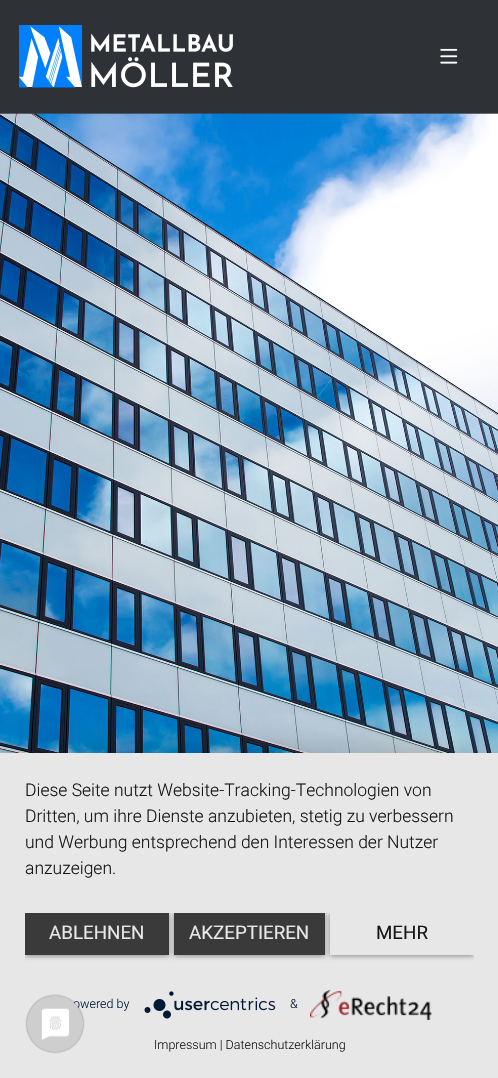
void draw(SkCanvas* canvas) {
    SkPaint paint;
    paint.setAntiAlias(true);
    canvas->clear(0xFF3D3D3D);
    paint.setColor(0xFF2E3236);
    canvas->drawRect(SkRect::MakeXYWH(0, 0, 498, 113), paint);
    canvas->drawImageRect(SkImages::DeferredFromEncodedData(SkData::MakeFromFileName("img1.png")), SkRect::MakeXYWH(19, 25, 214, 63), SkSamplingOptions());
    canvas->drawImageRect(SkImages::DeferredFromEncodedData(SkData::MakeFromFileName("img2.png")), SkRect::MakeXYWH(440, 48, 18, 16), SkSamplingOptions());
    canvas->drawImageRect(SkImages::DeferredFromEncodedData(SkData::MakeFromFileName("img3.png")), SkRect::MakeXYWH(0, 113, 498, 640), SkSamplingOptions());
    paint.setColor(0x4D000000);
    paint.setMaskFilter(SkMaskFilter::MakeBlur(kNormal_SkBlurStyle, 22.5f));
    canvas->drawRect(SkRect::MakeXYWH(0, 760, 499, 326), paint);
    paint.setMaskFilter(nullptr);
    paint.setColor(0xFFE7E7E7);
    canvas->drawRect(SkRect::MakeXYWH(0, 753, 498, 325), paint);
    SkFont font1(fontMgr->matchFamilyStyle("Roboto", SkFontStyle(300, SkFontStyle::kNormal_Width, SkFontStyle::kUpright_Slant)), 17.5f);
    font1.setSubpixel(true);
    paint.setColor(0xFF161616);
    canvas->drawString("Diese Seite nutzt Website-Tracking-Technologien von", 25, 796, font1, paint);
    canvas->drawString("Dritten, um ihre Dienste anzubieten, stetig zu verbessern", 25, 822, font1, paint);
    canvas->drawString("und Werbung entsprechend den Interessen der Nutzer", 25, 848, font1, paint);
    canvas->drawString("anzuzeigen.", 25, 874, font1, paint);
    canvas->save();
    canvas->clipRect(SkRect::MakeXYWH(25, 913, 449, 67));
    paint.setColor(0x66000000);
    paint.setMaskFilter(SkMaskFilter::MakeBlur(kNormal_SkBlurStyle, 2.5f));
    canvas->drawRect(SkRect::MakeXYWH(25, 914, 144, 42), paint);
    paint.setMaskFilter(nullptr);
    canvas->restore();
    paint.setColor(0xFF3A3A3A);
    canvas->drawRect(SkRect::MakeXYWH(25, 913, 144, 42), paint);
    SkFont font2(fontMgr->matchFamilyStyle("Roboto", SkFontStyle::Normal()), 18.75f);
    font2.setSubpixel(true);
    paint.setColor(0xFFE7E7E7);
    canvas->drawString("ABLEHNEN", 49, 939, font2, paint);
    canvas->save();
    canvas->clipRect(SkRect::MakeXYWH(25, 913, 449, 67));
    paint.setColor(0x66000000);
    paint.setMaskFilter(SkMaskFilter::MakeBlur(kNormal_SkBlurStyle, 2.5f));
    canvas->drawRect(SkRect::MakeXYWH(174, 914, 151, 42), paint);
    paint.setMaskFilter(nullptr);
    canvas->restore();
    paint.setColor(0xFF3A3A3A);
    canvas->drawRect(SkRect::MakeXYWH(174, 913, 151, 42), paint);
    paint.setColor(0xFFE7E7E7);
    canvas->drawString("AKZEPTIEREN", 189, 939, font2, paint);
    canvas->save();
    canvas->clipRect(SkRect::MakeXYWH(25, 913, 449, 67));
    paint.setColor(0x66000000);
    paint.setMaskFilter(SkMaskFilter::MakeBlur(kNormal_SkBlurStyle, 2.5f));
    canvas->drawRect(SkRect::MakeXYWH(330, 914, 144, 42), paint);
    paint.setMaskFilter(nullptr);
    canvas->restore();
    paint.setColor(0xFFE7E7E7);
    canvas->drawRect(SkRect::MakeXYWH(330, 913, 144, 42), paint);
    paint.setColor(0xFF161616);
    canvas->drawString("MEHR", 376, 939, font2, paint);
    SkFont font3(fontMgr->matchFamilyStyle("Roboto", SkFontStyle(300, SkFontStyle::kNormal_Width, SkFontStyle::kUpright_Slant)), 12.5f);
    font3.setSubpixel(true);
    paint.setColor(0xFF021836);
    canvas->drawString("owered by", 73, 1008, font3, paint);
    canvas->drawImageRect(SkImages::DeferredFromEncodedData(SkData::MakeFromFileName("img4.png")), SkRect::MakeXYWH(144, 991, 132, 28), SkSamplingOptions());
    canvas->drawString("&", 290, 1008, font3, paint);
    canvas->drawImageRect(SkImages::DeferredFromEncodedData(SkData::MakeFromFileName("img5.png")), SkRect::MakeXYWH(310, 990, 122, 30), SkSamplingOptions());
    paint.setColor(0xFF161616);
    canvas->drawString("Impressum | Datenschutzerklärung", 154, 1049, font3, paint);
    canvas->drawImageRect(SkImages::DeferredFromEncodedData(SkData::MakeFromFileName("img6.png")), SkRect::MakeXYWH(25, 994, 60, 60), SkSamplingOptions());
}
